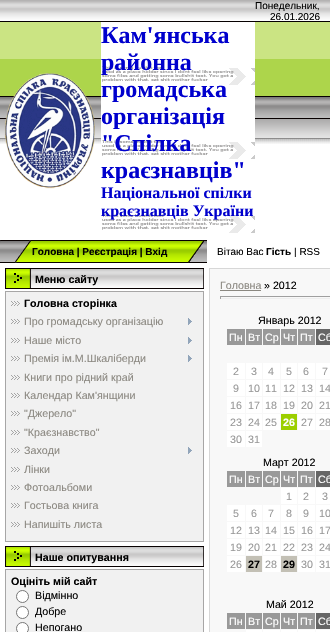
void draw(SkCanvas* canvas) {
    SkPaint paint;
    paint.setAntiAlias(true);
    canvas->clear(0xFFFFFFFF);
    canvas->drawImageRect(SkImages::DeferredFromEncodedData(SkData::MakeFromFileName("img1.png")), SkRect::MakeXYWH(0, 0, 330, 144), SkSamplingOptions());
    SkFont font1(fontMgr->matchFamilyStyle("Liberation Sans", SkFontStyle::Normal()), 10);
    font1.setSubpixel(true);
    paint.setColor(0xFF000000);
    canvas->drawString("Понедельник,", 255, 9, font1, paint);
    canvas->drawString("26.01.2026", 270, 20, font1, paint);
    canvas->drawImageRect(SkImages::DeferredFromEncodedData(SkData::MakeFromFileName("img2.png")), SkRect::MakeXYWH(4, 73, 91, 116), SkSamplingOptions());
    canvas->drawImageRect(SkImages::DeferredFromEncodedData(SkData::MakeFromFileName("img3.png")), SkRect::MakeXYWH(101, 22, 154, 211), SkSamplingOptions());
    SkFont font2(fontMgr->matchFamilyStyle("Liberation Serif", SkFontStyle::Bold()), 24);
    font2.setSubpixel(true);
    paint.setColor(0xFF0000CD);
    canvas->drawString("Кам'янська", 101, 43, font2, paint);
    canvas->drawString("районна", 101, 70, font2, paint);
    canvas->drawString("громадська", 101, 97, font2, paint);
    canvas->drawString("організація", 101, 124, font2, paint);
    canvas->drawString("\"Спілка", 101, 151, font2, paint);
    canvas->drawString("краєзнавців\"", 101, 178, font2, paint);
    SkFont font3(fontMgr->matchFamilyStyle("Liberation Serif", SkFontStyle::Bold()), 16);
    font3.setSubpixel(true);
    canvas->drawString("Національної спілки", 101, 198, font3, paint);
    canvas->drawString("краєзнавців України", 101, 216, font3, paint);
    canvas->drawImageRect(SkImages::DeferredFromEncodedData(SkData::MakeFromFileName("img4.png")), SkRect::MakeXYWH(0, 240, 32, 23), SkSamplingOptions());
    canvas->drawImageRect(SkImages::DeferredFromEncodedData(SkData::MakeFromFileName("img5.png")), SkRect::MakeXYWH(32, 240, 148, 23), SkSamplingOptions());
    SkFont font4(fontMgr->matchFamilyStyle("Liberation Sans", SkFontStyle::Bold()), 10);
    font4.setSubpixel(true);
    paint.setColor(0xFF000000);
    canvas->drawString("Головна | Реєстрація | Вхід", 32, 255, font4, paint);
    canvas->drawImageRect(SkImages::DeferredFromEncodedData(SkData::MakeFromFileName("img6.png")), SkRect::MakeXYWH(180, 240, 27, 23), SkSamplingOptions());
    canvas->drawString("Вітаю Вас", 217, 255, font1, paint);
    canvas->drawString("Гість", 266, 255, font4, paint);
    canvas->drawString("| RSS", 294, 255, font1, paint);
    canvas->drawImageRect(SkImages::DeferredFromEncodedData(SkData::MakeFromFileName("img7.png")), SkRect::MakeXYWH(5, 268, 199, 21), SkSamplingOptions());
    SkFont font5(fontMgr->matchFamilyStyle("Liberation Sans", SkFontStyle::Bold()), 10.7f);
    font5.setSubpixel(true);
    canvas->drawString("Меню сайту", 35, 283, font5, paint);
    paint.setColor(0xFFF1F1F1);
    canvas->drawRect(SkRect::MakeXYWH(5.5f, 291.5f, 198, 250), paint);
    paint.setStyle(SkPaint::kStroke_Style);
    paint.setStrokeWidth(1);
    paint.setColor(0xFFA7A6A6);
    canvas->drawRect(SkRect::MakeXYWH(5.5f, 291.5f, 198, 250), paint);
    canvas->drawImageRect(SkImages::DeferredFromEncodedData(SkData::MakeFromFileName("img8.png")), SkRect::MakeXYWH(11, 301, 9, 5), SkSamplingOptions());
    paint.setStyle(SkPaint::kFill_Style);
    paint.setColor(0xFF000000);
    canvas->drawString("Головна сторінка", 24, 307, font5, paint);
    canvas->drawImageRect(SkImages::DeferredFromEncodedData(SkData::MakeFromFileName("img8.png")), SkRect::MakeXYWH(11, 319, 9, 5), SkSamplingOptions());
    SkFont font6(fontMgr->matchFamilyStyle("Liberation Sans", SkFontStyle::Normal()), 10.7f);
    font6.setSubpixel(true);
    paint.setColor(0xFF8B8881);
    canvas->drawString("Про громадську організацію", 24, 325, font6, paint);
    canvas->drawImageRect(SkImages::DeferredFromEncodedData(SkData::MakeFromFileName("img9.png")), SkRect::MakeXYWH(188, 318, 4, 7), SkSamplingOptions());
    canvas->drawImageRect(SkImages::DeferredFromEncodedData(SkData::MakeFromFileName("img8.png")), SkRect::MakeXYWH(11, 338, 9, 5), SkSamplingOptions());
    canvas->drawString("Наше місто", 24, 344, font6, paint);
    canvas->drawImageRect(SkImages::DeferredFromEncodedData(SkData::MakeFromFileName("img9.png")), SkRect::MakeXYWH(188, 337, 4, 7), SkSamplingOptions());
    canvas->drawImageRect(SkImages::DeferredFromEncodedData(SkData::MakeFromFileName("img8.png")), SkRect::MakeXYWH(11, 356, 9, 5), SkSamplingOptions());
    canvas->drawString("Премія ім.М.Шкаліберди", 24, 362, font6, paint);
    canvas->drawImageRect(SkImages::DeferredFromEncodedData(SkData::MakeFromFileName("img9.png")), SkRect::MakeXYWH(188, 355, 4, 7), SkSamplingOptions());
    canvas->drawImageRect(SkImages::DeferredFromEncodedData(SkData::MakeFromFileName("img8.png")), SkRect::MakeXYWH(11, 375, 9, 5), SkSamplingOptions());
    canvas->drawString("Книги про рідний край", 24, 381, font6, paint);
    canvas->drawImageRect(SkImages::DeferredFromEncodedData(SkData::MakeFromFileName("img8.png")), SkRect::MakeXYWH(11, 393, 9, 5), SkSamplingOptions());
    canvas->drawString("Календар Кам'янщини", 24, 399, font6, paint);
    canvas->drawImageRect(SkImages::DeferredFromEncodedData(SkData::MakeFromFileName("img8.png")), SkRect::MakeXYWH(11, 411, 9, 5), SkSamplingOptions());
    canvas->drawString("\"Джерело\"", 24, 417, font6, paint);
    canvas->drawImageRect(SkImages::DeferredFromEncodedData(SkData::MakeFromFileName("img8.png")), SkRect::MakeXYWH(11, 430, 9, 5), SkSamplingOptions());
    canvas->drawString("\"Краєзнавство\"", 24, 436, font6, paint);
    canvas->drawImageRect(SkImages::DeferredFromEncodedData(SkData::MakeFromFileName("img8.png")), SkRect::MakeXYWH(11, 448, 9, 5), SkSamplingOptions());
    canvas->drawString("Заходи", 24, 454, font6, paint);
    canvas->drawImageRect(SkImages::DeferredFromEncodedData(SkData::MakeFromFileName("img9.png")), SkRect::MakeXYWH(188, 447, 4, 7), SkSamplingOptions());
    canvas->drawImageRect(SkImages::DeferredFromEncodedData(SkData::MakeFromFileName("img8.png")), SkRect::MakeXYWH(11, 467, 9, 5), SkSamplingOptions());
    canvas->drawString("Лінки", 24, 473, font6, paint);
    canvas->drawImageRect(SkImages::DeferredFromEncodedData(SkData::MakeFromFileName("img8.png")), SkRect::MakeXYWH(11, 485, 9, 5), SkSamplingOptions());
    canvas->drawString("Фотоальбоми", 24, 491, font6, paint);
    canvas->drawImageRect(SkImages::DeferredFromEncodedData(SkData::MakeFromFileName("img8.png")), SkRect::MakeXYWH(11, 503, 9, 5), SkSamplingOptions());
    canvas->drawString("Гостьова книга", 24, 509, font6, paint);
    canvas->drawImageRect(SkImages::DeferredFromEncodedData(SkData::MakeFromFileName("img8.png")), SkRect::MakeXYWH(11, 522, 9, 5), SkSamplingOptions());
    canvas->drawString("Напишіть листа", 24, 528, font6, paint);
    canvas->drawImageRect(SkImages::DeferredFromEncodedData(SkData::MakeFromFileName("img7.png")), SkRect::MakeXYWH(5, 546, 199, 21), SkSamplingOptions());
    paint.setColor(0xFF000000);
    canvas->drawString("Наше опитування", 35, 561, font5, paint);
    paint.setColor(0xFFF1F1F1);
    canvas->drawRect(SkRect::MakeXYWH(5.5f, 569.5f, 198, 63), paint);
    paint.setStyle(SkPaint::kStroke_Style);
    paint.setColor(0xFFA7A6A6);
    canvas->drawRect(SkRect::MakeXYWH(5.5f, 569.5f, 198, 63), paint);
    paint.setStyle(SkPaint::kFill_Style);
    paint.setColor(0xFF000000);
    canvas->drawString("Оцініть мій сайт", 11, 585, font5, paint);
    paint.setColor(0xFFFFFFFF);
    canvas->drawCircle(22.5f, 596.5f, 6, paint);
    paint.setStyle(SkPaint::kStroke_Style);
    paint.setColor(0xFF767676);
    canvas->drawCircle(22.5f, 596.5f, 6, paint);
    paint.setStyle(SkPaint::kFill_Style);
    paint.setColor(0xFF000000);
    canvas->drawString("Відмінно", 35, 599, font6, paint);
    paint.setColor(0xFFFFFFFF);
    canvas->drawCircle(22.5f, 612.5f, 6, paint);
    paint.setStyle(SkPaint::kStroke_Style);
    paint.setColor(0xFF767676);
    canvas->drawCircle(22.5f, 612.5f, 6, paint);
    paint.setStyle(SkPaint::kFill_Style);
    paint.setColor(0xFF000000);
    canvas->drawString("Добре", 35, 615, font6, paint);
    paint.setColor(0xFFFFFFFF);
    canvas->drawCircle(22.5f, 628.5f, 6, paint);
    paint.setStyle(SkPaint::kStroke_Style);
    paint.setColor(0xFF767676);
    canvas->drawCircle(22.5f, 628.5f, 6, paint);
    paint.setStyle(SkPaint::kFill_Style);
    paint.setColor(0xFF000000);
    canvas->drawString("Непогано", 35, 631, font6, paint);
    paint.setStyle(SkPaint::kStroke_Style);
    paint.setColor(0xFFD7D7D7);
    canvas->drawRect(SkRect::MakeXYWH(209.5f, 268.5f, 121, 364), paint);
    paint.setStyle(SkPaint::kFill_Style);
    paint.setColor(0xFFF8F8F8);
    canvas->drawRect(SkRect::MakeXYWH(210, 269, 120, 363), paint);
    paint.setColor(0xFF8B8881);
    canvas->drawString("Головна", 220, 289, font6, paint);
    canvas->drawRect(SkRect::MakeXYWH(220, 290, 41, 1), paint);
    paint.setColor(0xFF000000);
    canvas->drawString("» 2012", 264, 289, font6, paint);
    paint.setColor(0xFF9F9F9F);
    canvas->drawRect(SkRect::MakeXYWH(220, 296, 110, 1), paint);
    paint.setColor(0xFFEEEEEE);
    canvas->drawRect(SkRect::MakeXYWH(220, 298, 110, 1), paint);
    paint.setColor(0xFF9F9F9F);
    canvas->drawRect(SkRect::MakeXYWH(220, 296, 1, 3), paint);
    paint.setColor(0xFF000000);
    canvas->drawString("Январь 2012", 258, 324, font6, paint);
    paint.setColor(0xFF999999);
    canvas->drawRect(SkRect::MakeXYWH(227, 329, 18, 16), paint);
    paint.setColor(0xFFFFFFFF);
    canvas->drawString("Пн", 229, 341, font6, paint);
    paint.setColor(0xFF999999);
    canvas->drawRect(SkRect::MakeXYWH(246, 329, 16, 16), paint);
    paint.setColor(0xFFFFFFFF);
    canvas->drawString("Вт", 248, 341, font6, paint);
    paint.setColor(0xFF999999);
    canvas->drawRect(SkRect::MakeXYWH(263, 329, 17, 16), paint);
    paint.setColor(0xFFFFFFFF);
    canvas->drawString("Ср", 265, 341, font6, paint);
    paint.setColor(0xFF999999);
    canvas->drawRect(SkRect::MakeXYWH(281, 329, 16, 16), paint);
    paint.setColor(0xFFFFFFFF);
    canvas->drawString("Чт", 283, 341, font6, paint);
    paint.setColor(0xFF999999);
    canvas->drawRect(SkRect::MakeXYWH(298, 329, 17, 16), paint);
    paint.setColor(0xFFFFFFFF);
    canvas->drawString("Пт", 300, 341, font6, paint);
    paint.setColor(0xFF666666);
    canvas->drawRect(SkRect::MakeXYWH(316, 329, 14, 16), paint);
    paint.setColor(0xFFFFFFFF);
    canvas->drawString("Сб", 318, 341, font6, paint);
    canvas->drawRect(SkRect::MakeXYWH(227, 363, 18, 16), paint);
    paint.setColor(0xFF999999);
    canvas->drawString("2", 233, 375, font6, paint);
    paint.setColor(0xFFFFFFFF);
    canvas->drawRect(SkRect::MakeXYWH(246, 363, 16, 16), paint);
    paint.setColor(0xFF999999);
    canvas->drawString("3", 251, 375, font6, paint);
    paint.setColor(0xFFFFFFFF);
    canvas->drawRect(SkRect::MakeXYWH(263, 363, 17, 16), paint);
    paint.setColor(0xFF999999);
    canvas->drawString("4", 268, 375, font6, paint);
    paint.setColor(0xFFFFFFFF);
    canvas->drawRect(SkRect::MakeXYWH(281, 363, 16, 16), paint);
    paint.setColor(0xFF999999);
    canvas->drawString("5", 286, 375, font6, paint);
    paint.setColor(0xFFFFFFFF);
    canvas->drawRect(SkRect::MakeXYWH(298, 363, 17, 16), paint);
    paint.setColor(0xFF999999);
    canvas->drawString("6", 303, 375, font6, paint);
    paint.setColor(0xFFFFFFFF);
    canvas->drawRect(SkRect::MakeXYWH(316, 363, 14, 16), paint);
    paint.setColor(0xFF999999);
    canvas->drawString("7", 322, 375, font6, paint);
    paint.setColor(0xFFFFFFFF);
    canvas->drawRect(SkRect::MakeXYWH(227, 380, 18, 16), paint);
    paint.setColor(0xFF999999);
    canvas->drawString("9", 233, 392, font6, paint);
    paint.setColor(0xFFFFFFFF);
    canvas->drawRect(SkRect::MakeXYWH(246, 380, 16, 16), paint);
    paint.setColor(0xFF999999);
    canvas->drawString("10", 248, 392, font6, paint);
    paint.setColor(0xFFFFFFFF);
    canvas->drawRect(SkRect::MakeXYWH(263, 380, 17, 16), paint);
    paint.setColor(0xFF999999);
    canvas->drawString("11", 265, 392, font6, paint);
    paint.setColor(0xFFFFFFFF);
    canvas->drawRect(SkRect::MakeXYWH(281, 380, 16, 16), paint);
    paint.setColor(0xFF999999);
    canvas->drawString("12", 283, 392, font6, paint);
    paint.setColor(0xFFFFFFFF);
    canvas->drawRect(SkRect::MakeXYWH(298, 380, 17, 16), paint);
    paint.setColor(0xFF999999);
    canvas->drawString("13", 301, 392, font6, paint);
    paint.setColor(0xFFFFFFFF);
    canvas->drawRect(SkRect::MakeXYWH(316, 380, 14, 16), paint);
    paint.setColor(0xFF999999);
    canvas->drawString("14", 319, 392, font6, paint);
    paint.setColor(0xFFFFFFFF);
    canvas->drawRect(SkRect::MakeXYWH(227, 397, 18, 16), paint);
    paint.setColor(0xFF999999);
    canvas->drawString("16", 230, 409, font6, paint);
    paint.setColor(0xFFFFFFFF);
    canvas->drawRect(SkRect::MakeXYWH(246, 397, 16, 16), paint);
    paint.setColor(0xFF999999);
    canvas->drawString("17", 248, 409, font6, paint);
    paint.setColor(0xFFFFFFFF);
    canvas->drawRect(SkRect::MakeXYWH(263, 397, 17, 16), paint);
    paint.setColor(0xFF999999);
    canvas->drawString("18", 265, 409, font6, paint);
    paint.setColor(0xFFFFFFFF);
    canvas->drawRect(SkRect::MakeXYWH(281, 397, 16, 16), paint);
    paint.setColor(0xFF999999);
    canvas->drawString("19", 283, 409, font6, paint);
    paint.setColor(0xFFFFFFFF);
    canvas->drawRect(SkRect::MakeXYWH(298, 397, 17, 16), paint);
    paint.setColor(0xFF999999);
    canvas->drawString("20", 301, 409, font6, paint);
    paint.setColor(0xFFFFFFFF);
    canvas->drawRect(SkRect::MakeXYWH(316, 397, 14, 16), paint);
    paint.setColor(0xFF999999);
    canvas->drawString("21", 319, 409, font6, paint);
    paint.setColor(0xFFFFFFFF);
    canvas->drawRect(SkRect::MakeXYWH(227, 414, 18, 16), paint);
    paint.setColor(0xFF999999);
    canvas->drawString("23", 230, 426, font6, paint);
    paint.setColor(0xFFFFFFFF);
    canvas->drawRect(SkRect::MakeXYWH(246, 414, 16, 16), paint);
    paint.setColor(0xFF999999);
    canvas->drawString("24", 248, 426, font6, paint);
    paint.setColor(0xFFFFFFFF);
    canvas->drawRect(SkRect::MakeXYWH(263, 414, 17, 16), paint);
    paint.setColor(0xFF999999);
    canvas->drawString("25", 265, 426, font6, paint);
    paint.setColor(0xFF9CCF00);
    canvas->drawRect(SkRect::MakeXYWH(281, 414, 16, 16), paint);
    paint.setColor(0xFFFFFFFF);
    canvas->drawString("26", 283, 426, font5, paint);
    canvas->drawRect(SkRect::MakeXYWH(298, 414, 17, 16), paint);
    paint.setColor(0xFF999999);
    canvas->drawString("27", 301, 426, font6, paint);
    paint.setColor(0xFFFFFFFF);
    canvas->drawRect(SkRect::MakeXYWH(316, 414, 14, 16), paint);
    paint.setColor(0xFF999999);
    canvas->drawString("28", 319, 426, font6, paint);
    paint.setColor(0xFFFFFFFF);
    canvas->drawRect(SkRect::MakeXYWH(227, 431, 18, 16), paint);
    paint.setColor(0xFF999999);
    canvas->drawString("30", 230, 443, font6, paint);
    paint.setColor(0xFFFFFFFF);
    canvas->drawRect(SkRect::MakeXYWH(246, 431, 16, 16), paint);
    paint.setColor(0xFF999999);
    canvas->drawString("31", 248, 443, font6, paint);
    paint.setColor(0xFF000000);
    canvas->drawString("Март 2012", 263, 466, font6, paint);
    paint.setColor(0xFF999999);
    canvas->drawRect(SkRect::MakeXYWH(227, 471, 18, 16), paint);
    paint.setColor(0xFFFFFFFF);
    canvas->drawString("Пн", 229, 483, font6, paint);
    paint.setColor(0xFF999999);
    canvas->drawRect(SkRect::MakeXYWH(246, 471, 16, 16), paint);
    paint.setColor(0xFFFFFFFF);
    canvas->drawString("Вт", 248, 483, font6, paint);
    paint.setColor(0xFF999999);
    canvas->drawRect(SkRect::MakeXYWH(263, 471, 17, 16), paint);
    paint.setColor(0xFFFFFFFF);
    canvas->drawString("Ср", 265, 483, font6, paint);
    paint.setColor(0xFF999999);
    canvas->drawRect(SkRect::MakeXYWH(281, 471, 16, 16), paint);
    paint.setColor(0xFFFFFFFF);
    canvas->drawString("Чт", 283, 483, font6, paint);
    paint.setColor(0xFF999999);
    canvas->drawRect(SkRect::MakeXYWH(298, 471, 17, 16), paint);
    paint.setColor(0xFFFFFFFF);
    canvas->drawString("Пт", 300, 483, font6, paint);
    paint.setColor(0xFF666666);
    canvas->drawRect(SkRect::MakeXYWH(316, 471, 14, 16), paint);
    paint.setColor(0xFFFFFFFF);
    canvas->drawString("Сб", 318, 483, font6, paint);
    canvas->drawRect(SkRect::MakeXYWH(281, 488, 16, 16), paint);
    paint.setColor(0xFF999999);
    canvas->drawString("1", 286, 500, font6, paint);
    paint.setColor(0xFFFFFFFF);
    canvas->drawRect(SkRect::MakeXYWH(298, 488, 17, 16), paint);
    paint.setColor(0xFF999999);
    canvas->drawString("2", 303, 500, font6, paint);
    paint.setColor(0xFFFFFFFF);
    canvas->drawRect(SkRect::MakeXYWH(316, 488, 14, 16), paint);
    paint.setColor(0xFF999999);
    canvas->drawString("3", 322, 500, font6, paint);
    paint.setColor(0xFFFFFFFF);
    canvas->drawRect(SkRect::MakeXYWH(227, 505, 18, 16), paint);
    paint.setColor(0xFF999999);
    canvas->drawString("5", 233, 517, font6, paint);
    paint.setColor(0xFFFFFFFF);
    canvas->drawRect(SkRect::MakeXYWH(246, 505, 16, 16), paint);
    paint.setColor(0xFF999999);
    canvas->drawString("6", 251, 517, font6, paint);
    paint.setColor(0xFFFFFFFF);
    canvas->drawRect(SkRect::MakeXYWH(263, 505, 17, 16), paint);
    paint.setColor(0xFF999999);
    canvas->drawString("7", 268, 517, font6, paint);
    paint.setColor(0xFFFFFFFF);
    canvas->drawRect(SkRect::MakeXYWH(281, 505, 16, 16), paint);
    paint.setColor(0xFF999999);
    canvas->drawString("8", 286, 517, font6, paint);
    paint.setColor(0xFFFFFFFF);
    canvas->drawRect(SkRect::MakeXYWH(298, 505, 17, 16), paint);
    paint.setColor(0xFF999999);
    canvas->drawString("9", 303, 517, font6, paint);
    paint.setColor(0xFFFFFFFF);
    canvas->drawRect(SkRect::MakeXYWH(316, 505, 14, 16), paint);
    paint.setColor(0xFF999999);
    canvas->drawString("10", 319, 517, font6, paint);
    paint.setColor(0xFFFFFFFF);
    canvas->drawRect(SkRect::MakeXYWH(227, 522, 18, 16), paint);
    paint.setColor(0xFF999999);
    canvas->drawString("12", 230, 534, font6, paint);
    paint.setColor(0xFFFFFFFF);
    canvas->drawRect(SkRect::MakeXYWH(246, 522, 16, 16), paint);
    paint.setColor(0xFF999999);
    canvas->drawString("13", 248, 534, font6, paint);
    paint.setColor(0xFFFFFFFF);
    canvas->drawRect(SkRect::MakeXYWH(263, 522, 17, 16), paint);
    paint.setColor(0xFF999999);
    canvas->drawString("14", 265, 534, font6, paint);
    paint.setColor(0xFFFFFFFF);
    canvas->drawRect(SkRect::MakeXYWH(281, 522, 16, 16), paint);
    paint.setColor(0xFF999999);
    canvas->drawString("15", 283, 534, font6, paint);
    paint.setColor(0xFFFFFFFF);
    canvas->drawRect(SkRect::MakeXYWH(298, 522, 17, 16), paint);
    paint.setColor(0xFF999999);
    canvas->drawString("16", 301, 534, font6, paint);
    paint.setColor(0xFFFFFFFF);
    canvas->drawRect(SkRect::MakeXYWH(316, 522, 14, 16), paint);
    paint.setColor(0xFF999999);
    canvas->drawString("17", 319, 534, font6, paint);
    paint.setColor(0xFFFFFFFF);
    canvas->drawRect(SkRect::MakeXYWH(227, 539, 18, 16), paint);
    paint.setColor(0xFF999999);
    canvas->drawString("19", 230, 551, font6, paint);
    paint.setColor(0xFFFFFFFF);
    canvas->drawRect(SkRect::MakeXYWH(246, 539, 16, 16), paint);
    paint.setColor(0xFF999999);
    canvas->drawString("20", 248, 551, font6, paint);
    paint.setColor(0xFFFFFFFF);
    canvas->drawRect(SkRect::MakeXYWH(263, 539, 17, 16), paint);
    paint.setColor(0xFF999999);
    canvas->drawString("21", 265, 551, font6, paint);
    paint.setColor(0xFFFFFFFF);
    canvas->drawRect(SkRect::MakeXYWH(281, 539, 16, 16), paint);
    paint.setColor(0xFF999999);
    canvas->drawString("22", 283, 551, font6, paint);
    paint.setColor(0xFFFFFFFF);
    canvas->drawRect(SkRect::MakeXYWH(298, 539, 17, 16), paint);
    paint.setColor(0xFF999999);
    canvas->drawString("23", 301, 551, font6, paint);
    paint.setColor(0xFFFFFFFF);
    canvas->drawRect(SkRect::MakeXYWH(316, 539, 14, 16), paint);
    paint.setColor(0xFF999999);
    canvas->drawString("24", 319, 551, font6, paint);
    paint.setColor(0xFFFFFFFF);
    canvas->drawRect(SkRect::MakeXYWH(227, 556, 18, 16), paint);
    paint.setColor(0xFF999999);
    canvas->drawString("26", 230, 568, font6, paint);
    paint.setColor(0xFFC3C0B5);
    canvas->drawRect(SkRect::MakeXYWH(246, 556, 16, 16), paint);
    paint.setColor(0xFF000000);
    canvas->drawString("27", 248, 568, font5, paint);
    paint.setColor(0xFFFFFFFF);
    canvas->drawRect(SkRect::MakeXYWH(263, 556, 17, 16), paint);
    paint.setColor(0xFF999999);
    canvas->drawString("28", 265, 568, font6, paint);
    paint.setColor(0xFFC3C0B5);
    canvas->drawRect(SkRect::MakeXYWH(281, 556, 16, 16), paint);
    paint.setColor(0xFF000000);
    canvas->drawString("29", 283, 568, font5, paint);
    paint.setColor(0xFFFFFFFF);
    canvas->drawRect(SkRect::MakeXYWH(298, 556, 17, 16), paint);
    paint.setColor(0xFF999999);
    canvas->drawString("30", 301, 568, font6, paint);
    paint.setColor(0xFFFFFFFF);
    canvas->drawRect(SkRect::MakeXYWH(316, 556, 14, 16), paint);
    paint.setColor(0xFF999999);
    canvas->drawString("31", 319, 568, font6, paint);
    paint.setColor(0xFF000000);
    canvas->drawString("Май 2012", 266, 608, font6, paint);
    paint.setColor(0xFF999999);
    canvas->drawRect(SkRect::MakeXYWH(227, 613, 18, 16), paint);
    paint.setColor(0xFFFFFFFF);
    canvas->drawString("Пн", 229, 625, font6, paint);
    paint.setColor(0xFF999999);
    canvas->drawRect(SkRect::MakeXYWH(246, 613, 16, 16), paint);
    paint.setColor(0xFFFFFFFF);
    canvas->drawString("Вт", 248, 625, font6, paint);
    paint.setColor(0xFF999999);
    canvas->drawRect(SkRect::MakeXYWH(263, 613, 17, 16), paint);
    paint.setColor(0xFFFFFFFF);
    canvas->drawString("Ср", 265, 625, font6, paint);
    paint.setColor(0xFF999999);
    canvas->drawRect(SkRect::MakeXYWH(281, 613, 16, 16), paint);
    paint.setColor(0xFFFFFFFF);
    canvas->drawString("Чт", 283, 625, font6, paint);
    paint.setColor(0xFF999999);
    canvas->drawRect(SkRect::MakeXYWH(298, 613, 17, 16), paint);
    paint.setColor(0xFFFFFFFF);
    canvas->drawString("Пт", 300, 625, font6, paint);
    paint.setColor(0xFF666666);
    canvas->drawRect(SkRect::MakeXYWH(316, 613, 14, 16), paint);
    paint.setColor(0xFFFFFFFF);
    canvas->drawString("Сб", 318, 625, font6, paint);
    canvas->drawRect(SkRect::MakeXYWH(246, 630, 16, 2), paint);
    canvas->drawRect(SkRect::MakeXYWH(263, 630, 17, 2), paint);
    canvas->drawRect(SkRect::MakeXYWH(281, 630, 16, 2), paint);
    canvas->drawRect(SkRect::MakeXYWH(298, 630, 17, 2), paint);
    canvas->drawRect(SkRect::MakeXYWH(316, 630, 14, 2), paint);
}
